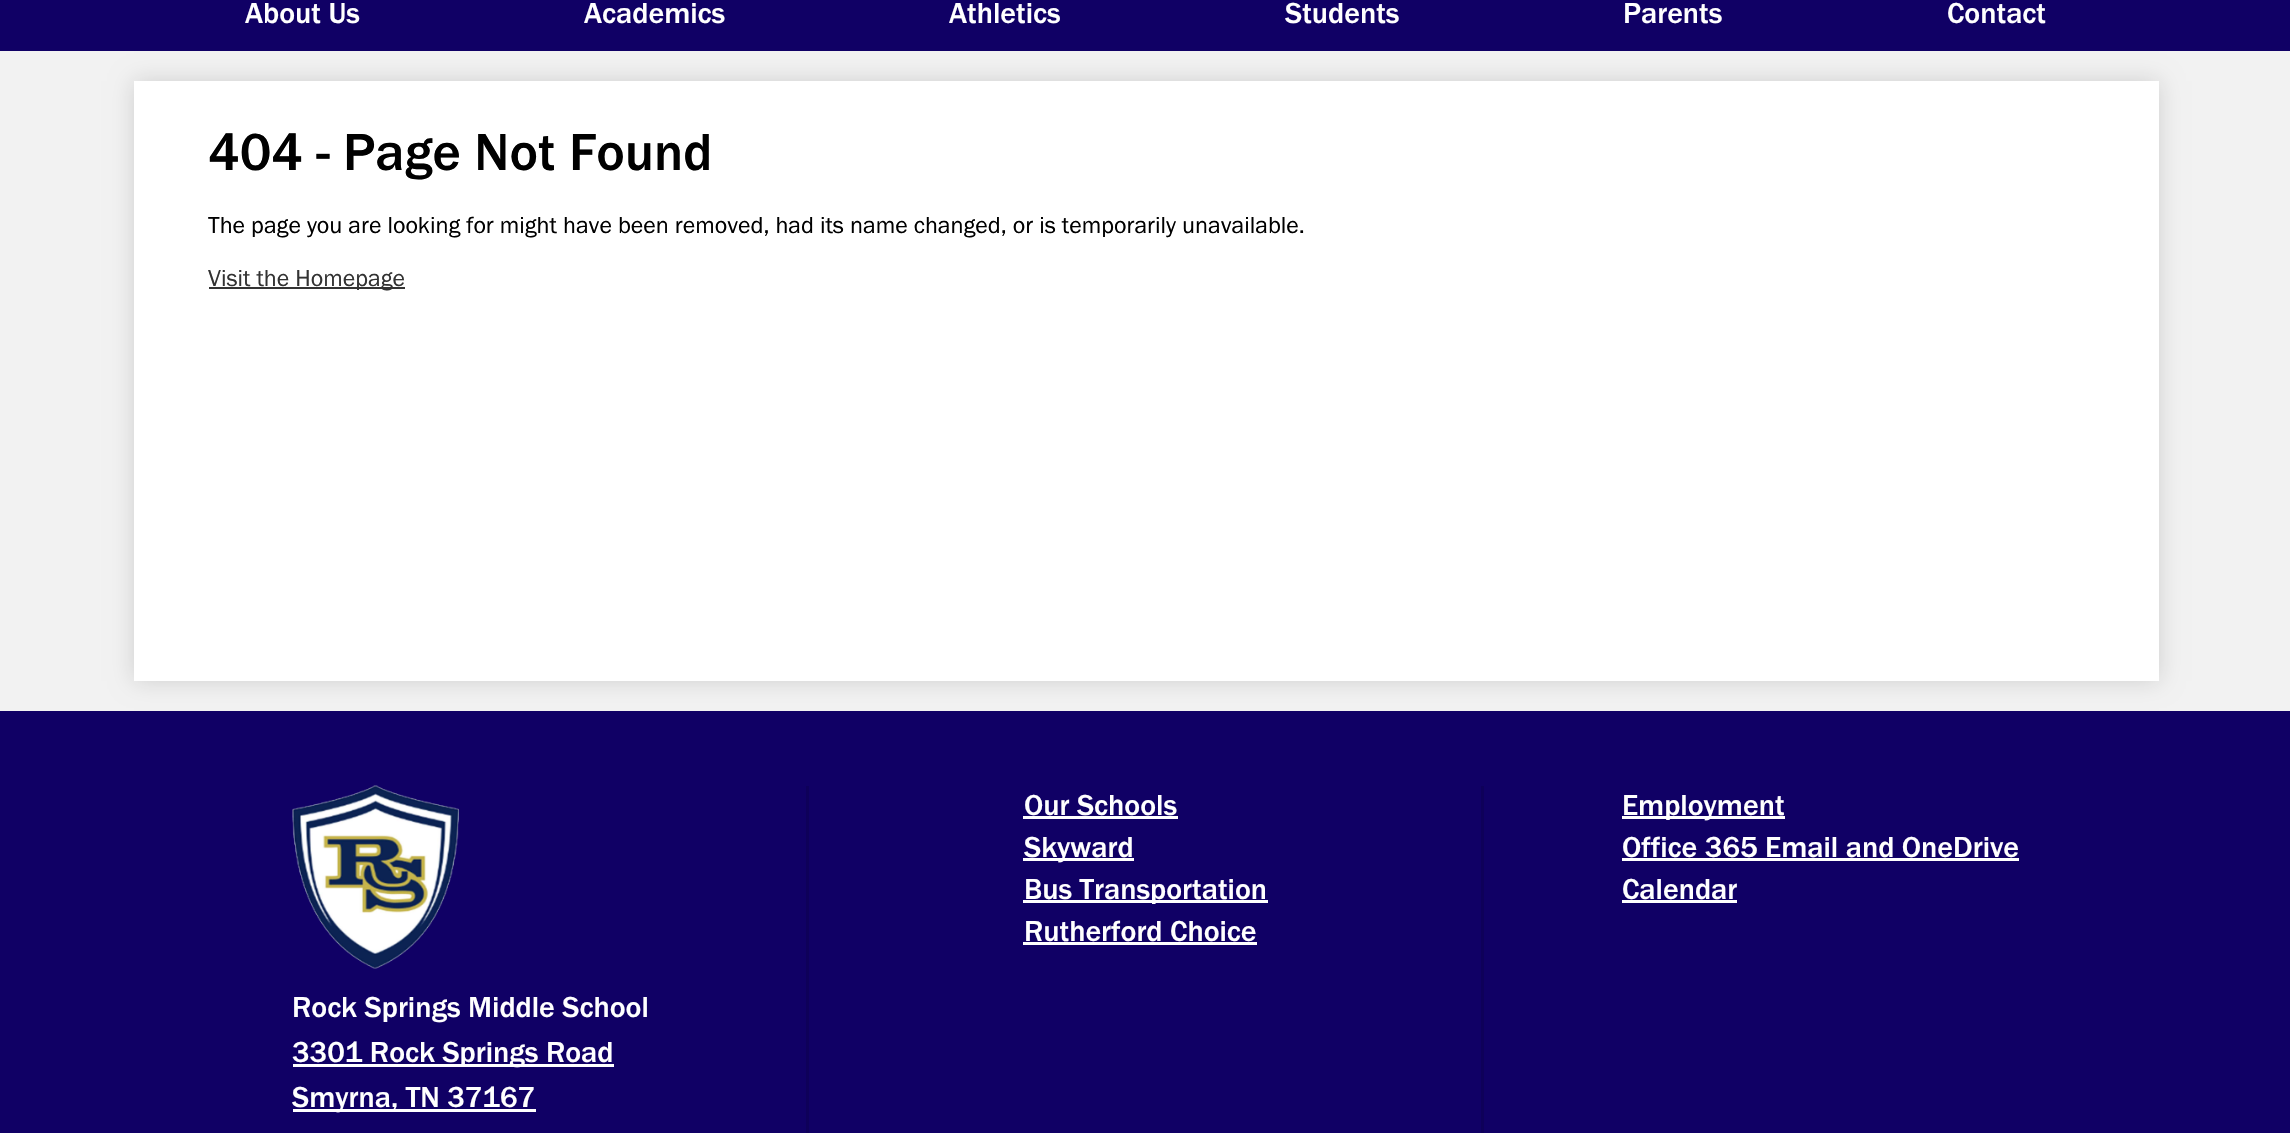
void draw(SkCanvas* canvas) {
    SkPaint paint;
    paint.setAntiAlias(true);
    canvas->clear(0xFFF2F2F2);
    paint.setColor(0xFF100065);
    canvas->drawRect(SkRect::MakeXYWH(0, 711, 2290, 422), paint);
    paint.setColor(0x26000000);
    paint.setMaskFilter(SkMaskFilter::MakeBlur(kNormal_SkBlurStyle, 11));
    canvas->drawRect(SkRect::MakeXYWH(134, 81, 2025, 600), paint);
    paint.setMaskFilter(nullptr);
    paint.setColor(0xFF100065);
    canvas->drawRect(SkRect::MakeXYWH(0, 0, 2290, 51), paint);
    SkFont font1(fontMgr->matchFamilyStyle("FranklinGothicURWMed", SkFontStyle::Normal()), 30);
    font1.setSubpixel(true);
    paint.setColor(0xFFFFFFFF);
    canvas->drawString("About Us", 245, 23, font1, paint);
    canvas->drawString("Academics", 584, 23, font1, paint);
    canvas->drawString("Athletics", 949, 23, font1, paint);
    canvas->drawString("Students", 1285, 23, font1, paint);
    canvas->drawString("Parents", 1623, 23, font1, paint);
    canvas->drawString("Contact", 1947, 23, font1, paint);
    canvas->drawRect(SkRect::MakeXYWH(134, 81, 2025, 600), paint);
    SkFont font2(fontMgr->matchFamilyStyle("FranklinGothicURWMed", SkFontStyle::Normal()), 54);
    font2.setSubpixel(true);
    paint.setColor(0xFF000000);
    canvas->drawString("404 - Page Not Found", 208, 170, font2, paint);
    SkFont font3(fontMgr->matchFamilyStyle("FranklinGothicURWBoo", SkFontStyle::Normal()), 24);
    font3.setSubpixel(true);
    canvas->drawString("The page you are looking for might have been removed, had its name changed, or is temporarily unavailable.", 208, 233, font3, paint);
    paint.setColor(0xFF333333);
    canvas->drawRect(SkRect::MakeXYWH(209, 287, 196, 2), paint);
    canvas->drawString("Visit the Homepage", 208, 286, font3, paint);
    paint.setColor(0xFFFFFFFF);
    canvas->drawString("Our Schools", 1024, 815, font1, paint);
    canvas->drawRect(SkRect::MakeXYWH(1023, 816, 155, 3), paint);
    canvas->drawRect(SkRect::MakeXYWH(1023, 858, 111, 3), paint);
    canvas->drawString("Skyward", 1024, 857, font1, paint);
    canvas->drawRect(SkRect::MakeXYWH(1023, 900, 245, 3), paint);
    canvas->drawString("Bus Transportation", 1024, 899, font1, paint);
    canvas->drawString("Rutherford Choice", 1024, 941, font1, paint);
    canvas->drawRect(SkRect::MakeXYWH(1023, 942, 234, 3), paint);
    paint.setColor(0xFF0E0059);
    canvas->drawRect(SkRect::MakeXYWH(1481, 786, 3, 347), paint);
    paint.setColor(0xFFFFFFFF);
    canvas->drawRect(SkRect::MakeXYWH(1622, 816, 163, 3), paint);
    canvas->drawString("Employment", 1622, 815, font1, paint);
    canvas->drawString("Office 365 Email and OneDrive", 1622, 857, font1, paint);
    canvas->drawRect(SkRect::MakeXYWH(1622, 858, 397, 3), paint);
    canvas->drawString("Calendar", 1622, 899, font1, paint);
    canvas->drawRect(SkRect::MakeXYWH(1622, 900, 115, 3), paint);
    canvas->drawImageRect(SkImages::DeferredFromEncodedData(SkData::MakeFromFileName("img1.png")), SkRect::MakeXYWH(292, 785, 167, 184), SkSamplingOptions());
    canvas->drawString("Rock Springs Middle School", 292, 1017, font1, paint);
    canvas->drawRect(SkRect::MakeXYWH(293, 1064, 321, 3), paint);
    canvas->drawString("3301 Rock Springs Road", 292, 1062, font1, paint);
    canvas->drawRect(SkRect::MakeXYWH(293, 1109, 243, 3), paint);
    canvas->drawString("Smyrna, TN 37167", 292, 1107, font1, paint);
    paint.setColor(0xFF0E0059);
    canvas->drawRect(SkRect::MakeXYWH(806, 786, 3, 347), paint);
}
